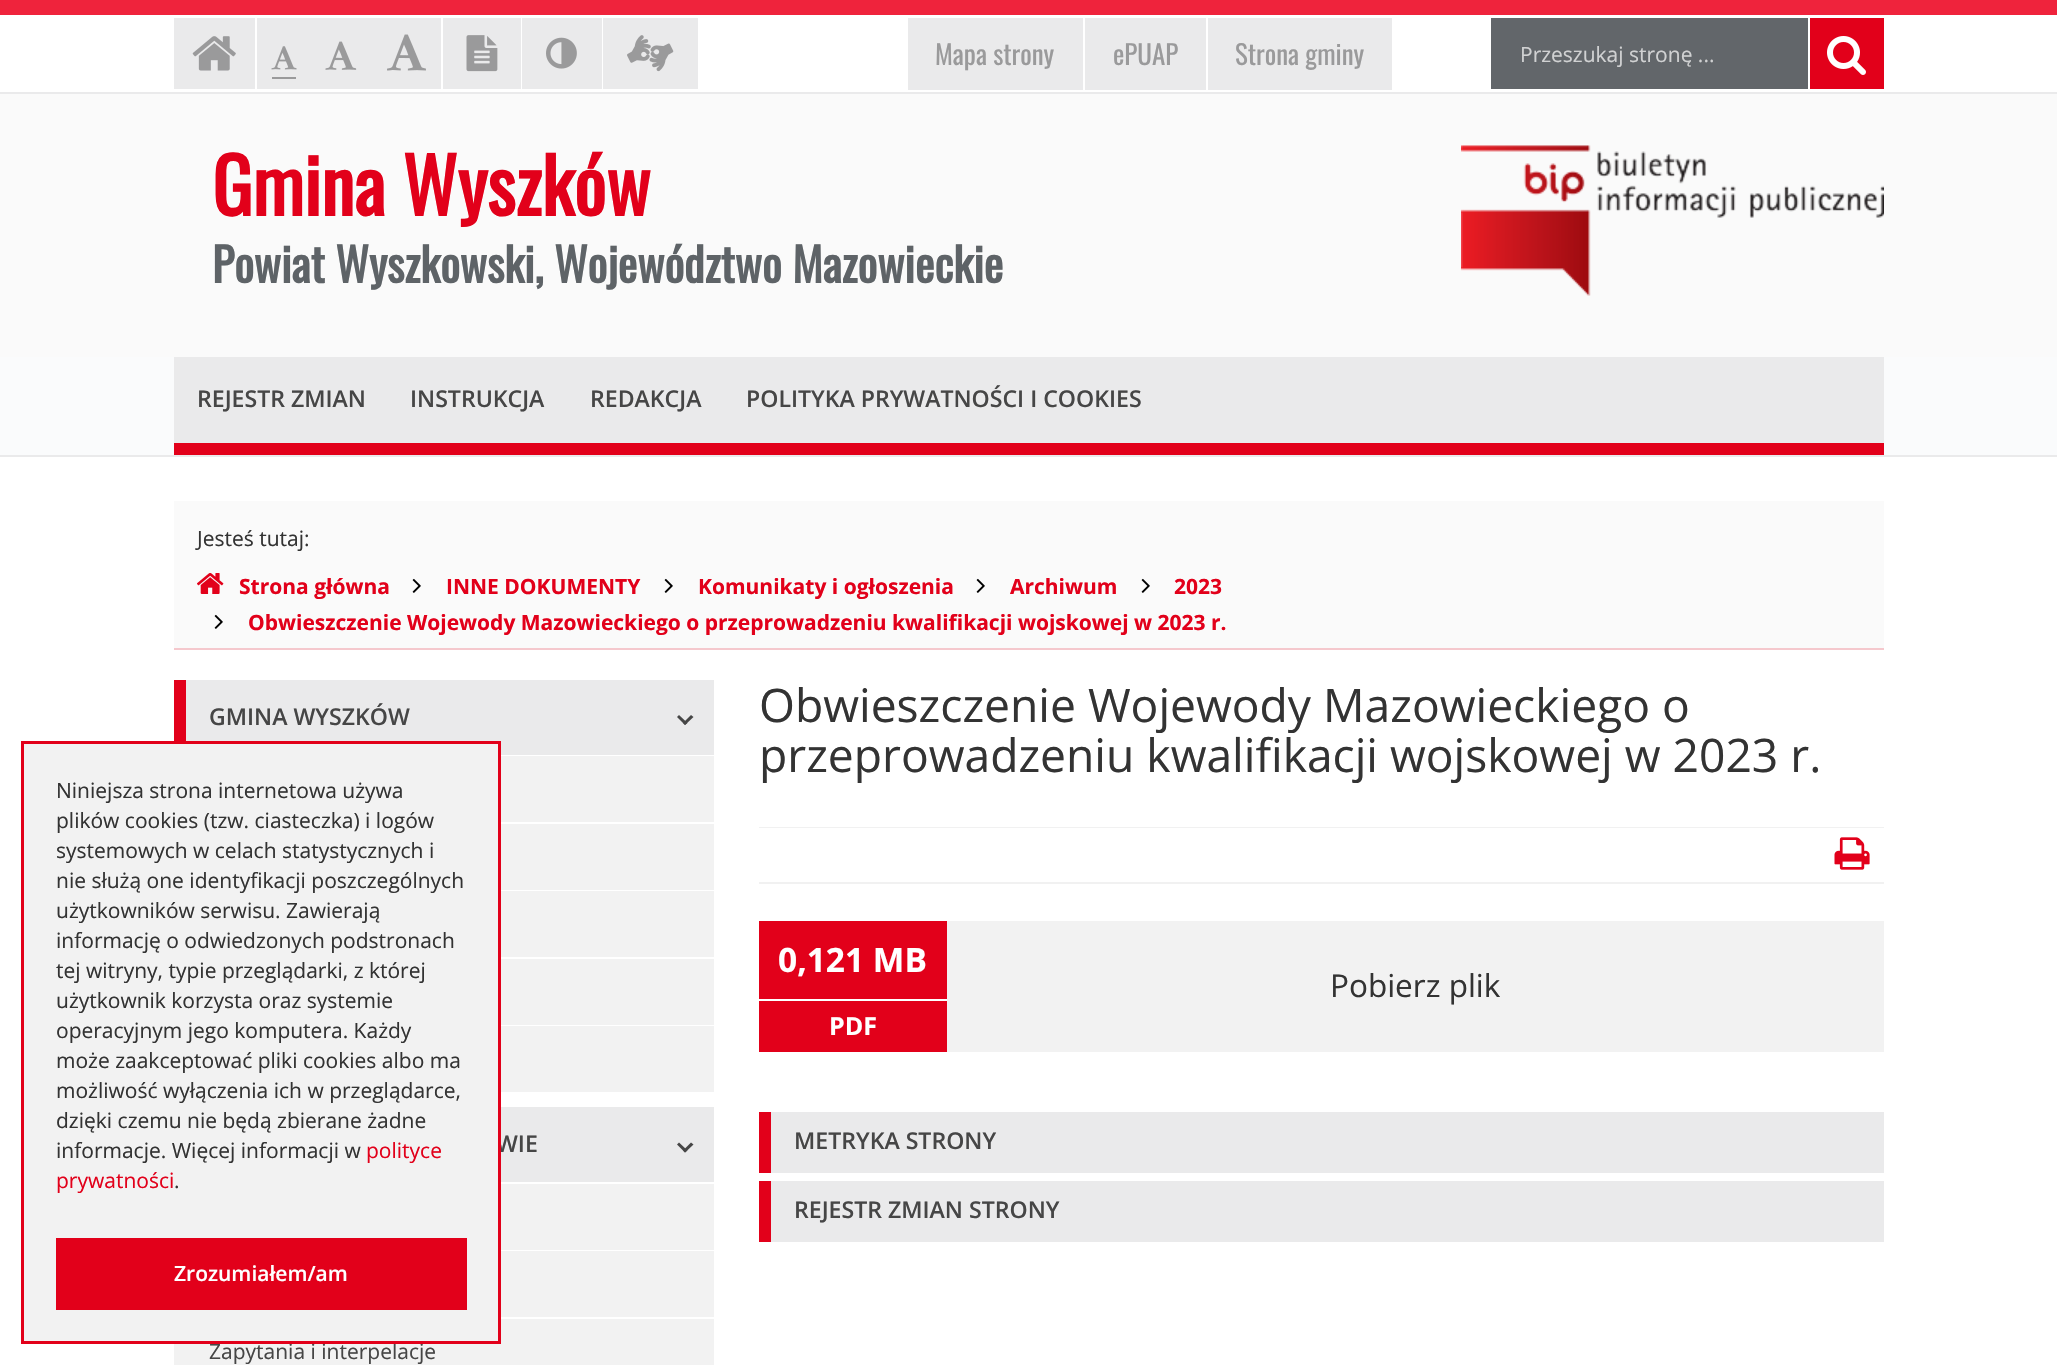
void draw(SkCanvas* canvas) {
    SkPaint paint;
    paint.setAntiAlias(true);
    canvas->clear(0xFFFFFFFF);
    paint.setColor(0xFFEF233C);
    canvas->drawRect(SkRect::MakeXYWH(0, 0, 2057, 15), paint);
    paint.setColor(0xFFEAEAEB);
    canvas->drawRect(SkRect::MakeXYWH(174, 18, 81, 71), paint);
    canvas->drawImageRect(SkImages::DeferredFromEncodedData(SkData::MakeFromFileName("img1.png")), SkRect::MakeXYWH(192, 36, 44, 35), SkSamplingOptions());
    canvas->drawRect(SkRect::MakeXYWH(257, 18, 184, 71), paint);
    paint.setColor(0xFF9A9A9B);
    canvas->drawRect(SkRect::MakeXYWH(272, 77, 24, 2), paint);
    canvas->drawImageRect(SkImages::DeferredFromEncodedData(SkData::MakeFromFileName("img2.png")), SkRect::MakeXYWH(271, 46, 26, 24), SkSamplingOptions());
    canvas->drawImageRect(SkImages::DeferredFromEncodedData(SkData::MakeFromFileName("img3.png")), SkRect::MakeXYWH(325, 41, 32, 29), SkSamplingOptions());
    canvas->drawImageRect(SkImages::DeferredFromEncodedData(SkData::MakeFromFileName("img4.png")), SkRect::MakeXYWH(387, 34, 39, 37), SkSamplingOptions());
    paint.setColor(0xFFEAEAEB);
    canvas->drawRect(SkRect::MakeXYWH(443, 18, 78, 71), paint);
    canvas->drawImageRect(SkImages::DeferredFromEncodedData(SkData::MakeFromFileName("img5.png")), SkRect::MakeXYWH(466, 35, 32, 37), SkSamplingOptions());
    canvas->drawRect(SkRect::MakeXYWH(522, 18, 80, 71), paint);
    canvas->drawImageRect(SkImages::DeferredFromEncodedData(SkData::MakeFromFileName("img6.png")), SkRect::MakeXYWH(546, 37, 31, 32), SkSamplingOptions());
    canvas->drawRect(SkRect::MakeXYWH(603, 18, 95, 71), paint);
    canvas->drawImageRect(SkImages::DeferredFromEncodedData(SkData::MakeFromFileName("img7.png")), SkRect::MakeXYWH(627, 35, 47, 37), SkSamplingOptions());
    canvas->drawRect(SkRect::MakeXYWH(908, 18, 175, 72), paint);
    SkFont font1(fontMgr->matchFamilyStyle("Oswald", SkFontStyle::Normal()), 27);
    font1.setSubpixel(true);
    paint.setColor(0xFF9A9A9B);
    canvas->drawString("Mapa strony", 935, 65, font1, paint);
    paint.setColor(0xFFEAEAEB);
    canvas->drawRect(SkRect::MakeXYWH(1085, 18, 121, 72), paint);
    paint.setColor(0xFF9A9A9B);
    canvas->drawString("ePUAP", 1113, 65, font1, paint);
    paint.setColor(0xFFEAEAEB);
    canvas->drawRect(SkRect::MakeXYWH(1208, 18, 184, 72), paint);
    paint.setColor(0xFF9A9A9B);
    canvas->drawString("Strona gminy", 1235, 65, font1, paint);
    paint.setColor(0xFF62666A);
    canvas->drawRect(SkRect::MakeXYWH(1491, 18, 317, 71), paint);
    SkFont font2(fontMgr->matchFamilyStyle("Open Sans", SkFontStyle::Normal()), 21);
    font2.setSubpixel(true);
    paint.setColor(0xFFD0D1D2);
    canvas->drawString("Przeszukaj stronę ...", 1520, 62, font2, paint);
    paint.setColor(0xFFE2001A);
    canvas->drawRect(SkRect::MakeXYWH(1810, 18, 74, 71), paint);
    canvas->drawImageRect(SkImages::DeferredFromEncodedData(SkData::MakeFromFileName("img8.png")), SkRect::MakeXYWH(1827, 36, 39, 39), SkSamplingOptions());
    paint.setColor(0xFFFAFAFA);
    canvas->drawRect(SkRect::MakeXYWH(0, 94, 2057, 263), paint);
    paint.setColor(0xFFEAEAEB);
    canvas->drawRect(SkRect::MakeXYWH(0, 92, 2057, 2), paint);
    SkFont font3(fontMgr->matchFamilyStyle("Oswald", SkFontStyle::Bold()), 75.5f);
    font3.setSubpixel(true);
    paint.setColor(0xFFE2001A);
    canvas->drawString("Gmina Wyszków", 212, 216, font3, paint);
    SkFont font4(fontMgr->matchFamilyStyle("Oswald", SkFontStyle::Bold()), 46.2f);
    font4.setSubpixel(true);
    paint.setColor(0xFF5E6367);
    canvas->drawString("Powiat Wyszkowski, Województwo Mazowieckie", 212, 283, font4, paint);
    canvas->drawImageRect(SkImages::DeferredFromEncodedData(SkData::MakeFromFileName("img9.png")), SkRect::MakeXYWH(1461, 145, 423, 151), SkSamplingOptions());
    paint.setColor(0xFFFAFBFC);
    canvas->drawRect(SkRect::MakeXYWH(0, 357, 2057, 98), paint);
    paint.setColor(0xFFEAEAEB);
    canvas->drawRect(SkRect::MakeXYWH(0, 455, 2057, 2), paint);
    canvas->drawRect(SkRect::MakeXYWH(174, 357, 1710, 86), paint);
    paint.setColor(0xFFE2001A);
    canvas->drawRect(SkRect::MakeXYWH(174, 443, 1710, 12), paint);
    SkFont font5(fontMgr->matchFamilyStyle("Open Sans", SkFontStyle(600, SkFontStyle::kNormal_Width, SkFontStyle::kUpright_Slant)), 23.1f);
    font5.setSubpixel(true);
    paint.setColor(0xFF464646);
    canvas->drawString("REJESTR ZMIAN", 197, 407, font5, paint);
    canvas->drawString("INSTRUKCJA", 410, 407, font5, paint);
    canvas->drawString("REDAKCJA", 590, 407, font5, paint);
    canvas->drawString("POLITYKA PRYWATNOŚCI I COOKIES", 746, 407, font5, paint);
    paint.setColor(0xFFFAFAFA);
    canvas->drawRect(SkRect::MakeXYWH(174, 501, 1710, 147), paint);
    paint.setColor(0xFFF5C8CD);
    canvas->drawRect(SkRect::MakeXYWH(174, 648, 1710, 2), paint);
    paint.setColor(0xFF333333);
    canvas->drawString("Jesteś tutaj:", 197, 546, font2, paint);
    canvas->drawImageRect(SkImages::DeferredFromEncodedData(SkData::MakeFromFileName("img10.png")), SkRect::MakeXYWH(197, 573, 27, 21), SkSamplingOptions());
    SkFont font6(fontMgr->matchFamilyStyle("Open Sans", SkFontStyle::Bold()), 21);
    font6.setSubpixel(true);
    paint.setColor(0xFFE2001A);
    canvas->drawString("Strona główna", 239, 594, font6, paint);
    canvas->drawImageRect(SkImages::DeferredFromEncodedData(SkData::MakeFromFileName("img11.png")), SkRect::MakeXYWH(412, 578, 9, 15), SkSamplingOptions());
    canvas->drawString("INNE DOKUMENTY", 446, 594, font6, paint);
    canvas->drawImageRect(SkImages::DeferredFromEncodedData(SkData::MakeFromFileName("img11.png")), SkRect::MakeXYWH(664, 578, 9, 15), SkSamplingOptions());
    canvas->drawString("Komunikaty i ogłoszenia", 698, 594, font6, paint);
    canvas->drawImageRect(SkImages::DeferredFromEncodedData(SkData::MakeFromFileName("img11.png")), SkRect::MakeXYWH(976, 578, 9, 15), SkSamplingOptions());
    canvas->drawString("Archiwum", 1010, 594, font6, paint);
    canvas->drawImageRect(SkImages::DeferredFromEncodedData(SkData::MakeFromFileName("img11.png")), SkRect::MakeXYWH(1141, 578, 9, 15), SkSamplingOptions());
    canvas->drawString("2023", 1174, 594, font6, paint);
    canvas->drawImageRect(SkImages::DeferredFromEncodedData(SkData::MakeFromFileName("img11.png")), SkRect::MakeXYWH(214, 614, 9, 15), SkSamplingOptions());
    canvas->drawString("Obwieszczenie Wojewody Mazowieckiego o przeprowadzeniu kwalifikacji wojskowej w 2023 r.", 248, 630, font6, paint);
    paint.setColor(0xFFEAEAEB);
    canvas->drawRect(SkRect::MakeXYWH(186, 680, 528, 75), paint);
    paint.setColor(0xFFE2001A);
    canvas->drawRect(SkRect::MakeXYWH(174, 680, 12, 61), paint);
    paint.setColor(0xFF464646);
    canvas->drawString("GMINA WYSZKÓW", 209, 725, font5, paint);
    canvas->drawPath(SkPathBuilder().moveTo(685, 725).lineTo(677, 717).lineTo(679, 715).lineTo(687.5f, 723).close().detach(), paint);
    canvas->drawPath(SkPathBuilder().moveTo(685, 725).lineTo(683, 723).lineTo(691, 715).lineTo(693.5f, 717).close().detach(), paint);
    paint.setColor(0xFFF2F2F2);
    canvas->drawRect(SkRect::MakeXYWH(501, 756, 213, 66), paint);
    canvas->drawRect(SkRect::MakeXYWH(501, 824, 213, 66), paint);
    canvas->drawRect(SkRect::MakeXYWH(501, 891, 213, 66), paint);
    canvas->drawRect(SkRect::MakeXYWH(501, 959, 213, 66), paint);
    canvas->drawRect(SkRect::MakeXYWH(501, 1026, 213, 66), paint);
    paint.setColor(0xFFEAEAEB);
    canvas->drawRect(SkRect::MakeXYWH(501, 1107, 213, 75), paint);
    paint.setColor(0xFF464646);
    canvas->drawString("WIE", 496, 1152, font5, paint);
    canvas->drawPath(SkPathBuilder().moveTo(685, 1152.5f).lineTo(677, 1144.5f).lineTo(679, 1142.5f).lineTo(687.5f, 1150.5f).close().detach(), paint);
    canvas->drawPath(SkPathBuilder().moveTo(685, 1152.5f).lineTo(683, 1150.5f).lineTo(691, 1142.5f).lineTo(693.5f, 1144.5f).close().detach(), paint);
    paint.setColor(0xFFF2F2F2);
    canvas->drawRect(SkRect::MakeXYWH(501, 1184, 213, 66), paint);
    canvas->drawRect(SkRect::MakeXYWH(501, 1251, 213, 66), paint);
    canvas->drawRect(SkRect::MakeXYWH(174, 1319, 540, 46), paint);
    paint.setColor(0xFF464646);
    canvas->drawString("Zapytania i interpelacje", 209, 1359, font2, paint);
    SkFont font7(fontMgr->matchFamilyStyle("Open Sans", SkFontStyle::Normal()), 46.2f);
    font7.setSubpixel(true);
    paint.setColor(0xFF333333);
    canvas->drawString("Obwieszczenie Wojewody Mazowieckiego o", 759, 722, font7, paint);
    canvas->drawString("przeprowadzeniu kwalifikacji wojskowej w 2023 r.", 759, 772, font7, paint);
    paint.setColor(0xFFF1F1F1);
    canvas->drawRect(SkRect::MakeXYWH(759, 827, 1125, 1), paint);
    canvas->drawRect(SkRect::MakeXYWH(759, 882, 1125, 2), paint);
    canvas->drawImageRect(SkImages::DeferredFromEncodedData(SkData::MakeFromFileName("img12.png")), SkRect::MakeXYWH(1834, 837, 36, 33), SkSamplingOptions());
    paint.setColor(0xFFF2F2F2);
    canvas->drawRect(SkRect::MakeXYWH(947, 921, 937, 131), paint);
    paint.setColor(0xFFE2001A);
    canvas->drawRect(SkRect::MakeXYWH(759, 921, 188, 78), paint);
    SkFont font8(fontMgr->matchFamilyStyle("Open Sans", SkFontStyle::Bold()), 33.5f);
    font8.setSubpixel(true);
    paint.setColor(0xFFFFFFFF);
    canvas->drawString("0,121 MB", 778, 972, font8, paint);
    paint.setColor(0xFFE2001A);
    canvas->drawRect(SkRect::MakeXYWH(759, 1001, 188, 51), paint);
    SkFont font9(fontMgr->matchFamilyStyle("Open Sans", SkFontStyle::Bold()), 25);
    font9.setSubpixel(true);
    paint.setColor(0xFFFFFFFF);
    canvas->drawString("PDF", 829, 1035, font9, paint);
    SkFont font10(fontMgr->matchFamilyStyle("Open Sans", SkFontStyle::Normal()), 31.5f);
    font10.setSubpixel(true);
    paint.setColor(0xFF333333);
    canvas->drawString("Pobierz plik", 1330, 997, font10, paint);
    paint.setColor(0xFFEAEAEB);
    canvas->drawRect(SkRect::MakeXYWH(771, 1112, 1113, 61), paint);
    paint.setColor(0xFFE2001A);
    canvas->drawRect(SkRect::MakeXYWH(759, 1112, 12, 61), paint);
    paint.setColor(0xFF464646);
    canvas->drawString("METRYKA STRONY", 794, 1149, font5, paint);
    paint.setColor(0xFFEAEAEB);
    canvas->drawRect(SkRect::MakeXYWH(771, 1181, 1113, 61), paint);
    paint.setColor(0xFFE2001A);
    canvas->drawRect(SkRect::MakeXYWH(759, 1181, 12, 61), paint);
    paint.setColor(0xFF464646);
    canvas->drawString("REJESTR ZMIAN STRONY", 794, 1218, font5, paint);
    paint.setColor(0xFFF2F2F2);
    canvas->drawRect(SkRect::MakeXYWH(22.5f, 742.5f, 477, 600), paint);
    paint.setStyle(SkPaint::kStroke_Style);
    paint.setStrokeWidth(3);
    paint.setColor(0xFFE2001A);
    canvas->drawRect(SkRect::MakeXYWH(22.5f, 742.5f, 477, 600), paint);
    paint.setStyle(SkPaint::kFill_Style);
    paint.setColor(0xFF333333);
    canvas->drawString("Niniejsza strona internetowa używa", 56, 798, font2, paint);
    canvas->drawString("plików cookies (tzw. ciasteczka) i logów", 56, 828, font2, paint);
    canvas->drawString("systemowych w celach statystycznych i", 56, 858, font2, paint);
    canvas->drawString("nie służą one identyfikacji poszczególnych", 56, 888, font2, paint);
    canvas->drawString("użytkowników serwisu. Zawierają", 56, 918, font2, paint);
    canvas->drawString("informację o odwiedzonych podstronach", 56, 948, font2, paint);
    canvas->drawString("tej witryny, typie przeglądarki, z której", 56, 978, font2, paint);
    canvas->drawString("użytkownik korzysta oraz systemie", 56, 1008, font2, paint);
    canvas->drawString("operacyjnym jego komputera. Każdy", 56, 1038, font2, paint);
    canvas->drawString("może zaakceptować pliki cookies albo ma", 56, 1068, font2, paint);
    canvas->drawString("możliwość wyłączenia ich w przeglądarce,", 56, 1098, font2, paint);
    canvas->drawString("dzięki czemu nie będą zbierane żadne", 56, 1128, font2, paint);
    canvas->drawString("informacje. Więcej informacji w", 56, 1158, font2, paint);
    paint.setColor(0xFFE2001A);
    canvas->drawString("polityce", 366, 1158, font2, paint);
    canvas->drawString("prywatności", 56, 1188, font2, paint);
    paint.setColor(0xFF333333);
    canvas->drawString(".", 174, 1188, font2, paint);
    paint.setColor(0xFFE2001A);
    canvas->drawRect(SkRect::MakeXYWH(56, 1238, 411, 72), paint);
    SkFont font11(fontMgr->matchFamilyStyle("Open Sans", SkFontStyle(600, SkFontStyle::kNormal_Width, SkFontStyle::kUpright_Slant)), 21);
    font11.setSubpixel(true);
    paint.setColor(0xFFFFFFFF);
    canvas->drawString("Zrozumiałem/am", 174, 1281, font11, paint);
}
